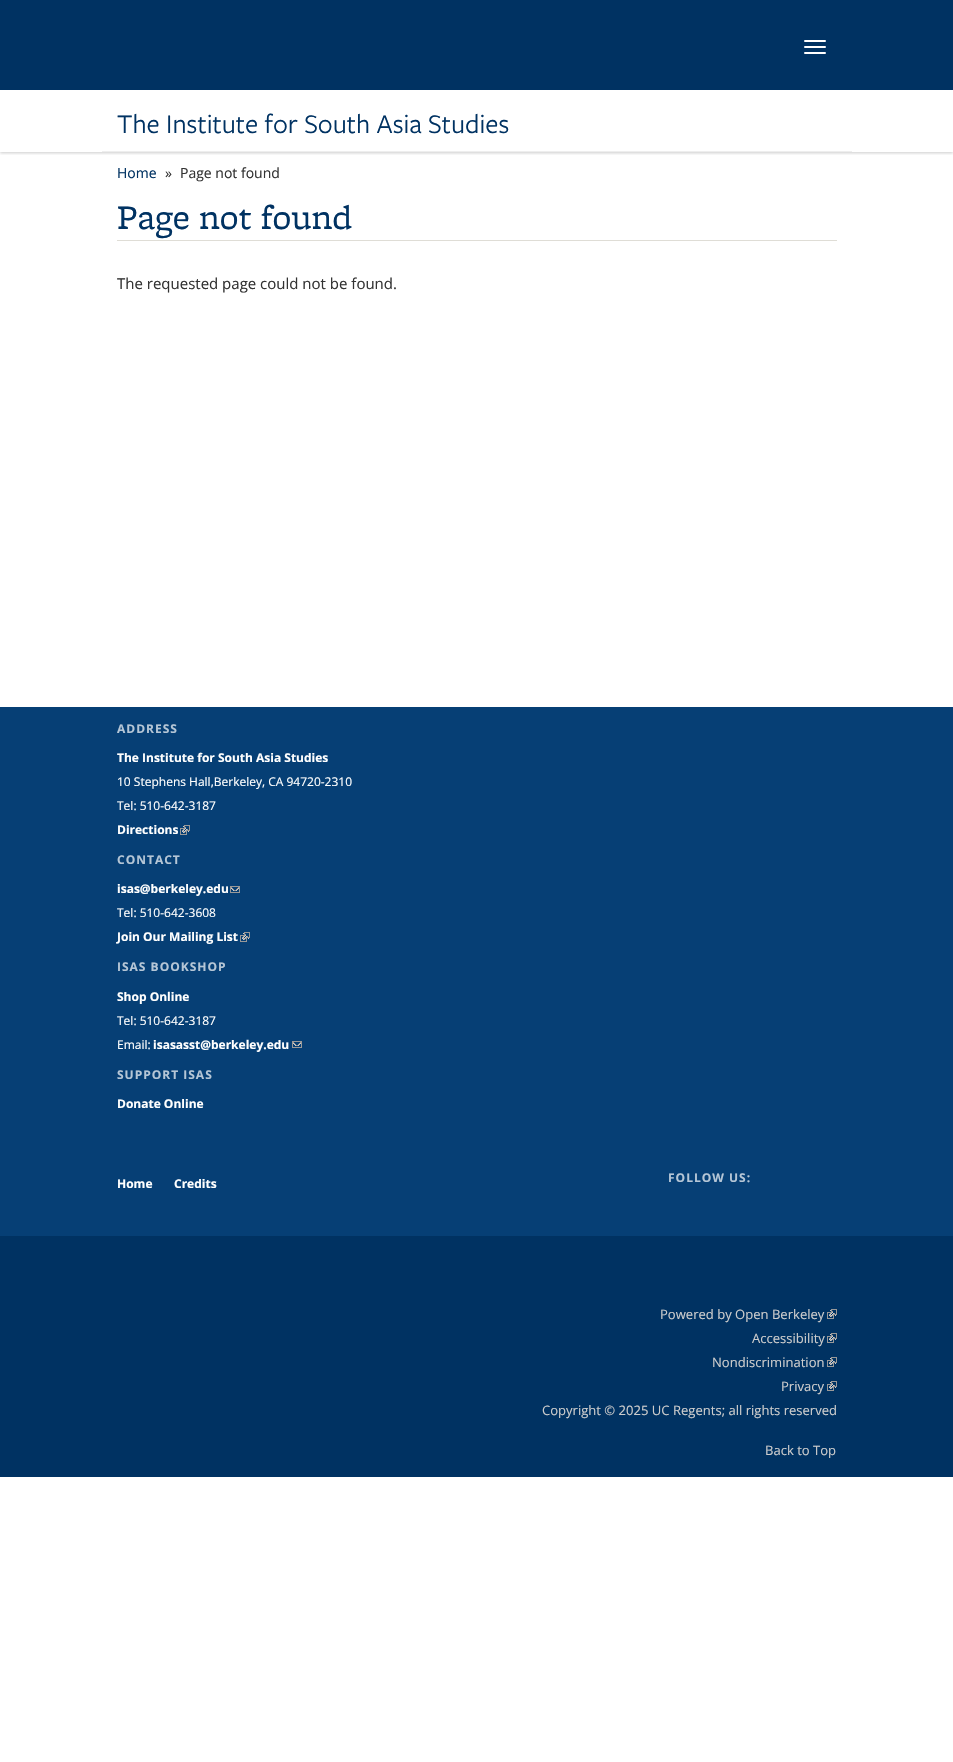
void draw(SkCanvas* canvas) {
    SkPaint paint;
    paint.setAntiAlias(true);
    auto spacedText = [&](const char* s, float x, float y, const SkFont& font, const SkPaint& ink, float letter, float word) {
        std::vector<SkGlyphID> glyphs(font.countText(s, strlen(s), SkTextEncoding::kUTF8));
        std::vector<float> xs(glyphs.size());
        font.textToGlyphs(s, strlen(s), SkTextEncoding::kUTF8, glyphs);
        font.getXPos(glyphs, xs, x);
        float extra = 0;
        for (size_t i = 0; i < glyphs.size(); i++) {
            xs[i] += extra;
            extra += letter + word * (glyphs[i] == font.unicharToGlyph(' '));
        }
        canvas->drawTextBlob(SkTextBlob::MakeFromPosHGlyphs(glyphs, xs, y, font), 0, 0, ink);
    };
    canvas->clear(0xFFFFFFFF);
    canvas->save();
    canvas->clipRect(SkRect::MakeXYWH(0, 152, 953, 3));
    paint.setColor(0x33000000);
    paint.setMaskFilter(SkMaskFilter::MakeBlur(kNormal_SkBlurStyle, 1.5f));
    canvas->drawRect(SkRect::MakeXYWH(0, 1, 953, 152), paint);
    paint.setMaskFilter(nullptr);
    canvas->restore();
    paint.setColor(0xFF003262);
    canvas->drawRect(SkRect::MakeXYWH(0, 0, 953, 90), paint);
    paint.setColor(0xFFFFFFFF);
    canvas->drawRoundRect(SkRect::MakeXYWH(804, 40, 22, 2), 1, 1, paint);
    canvas->drawRoundRect(SkRect::MakeXYWH(804, 46, 22, 2), 1, 1, paint);
    canvas->drawRoundRect(SkRect::MakeXYWH(804, 52, 22, 2), 1, 1, paint);
    paint.setColor(0xFFEEEEEE);
    canvas->drawRect(SkRect::MakeXYWH(102, 151, 750, 1), paint);
    SkFont font1(fontMgr->matchFamilyStyle("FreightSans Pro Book", SkFontStyle::Normal()), 28);
    font1.setSubpixel(true);
    paint.setColor(0xFF003262);
    canvas->drawString("The Institute for South Asia Studies", 117, 133, font1, paint);
    SkFont font2(fontMgr->matchFamilyStyle("Open Sans", SkFontStyle::Normal()), 14);
    font2.setSubpixel(true);
    canvas->drawString("Home", 117, 178, font2, paint);
    paint.setColor(0xFF333333);
    canvas->drawString("»", 165, 178, font2, paint);
    canvas->drawString("Page not found", 180, 178, font2, paint);
    paint.setColor(0xFFDFDDD6);
    canvas->drawRect(SkRect::MakeXYWH(117, 240, 720, 1), paint);
    SkFont font3(fontMgr->matchFamilyStyle("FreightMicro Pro", SkFontStyle::Normal()), 36);
    font3.setSubpixel(true);
    paint.setColor(0xFF003262);
    canvas->drawString("Page not found", 117, 229, font3, paint);
    SkFont font4(fontMgr->matchFamilyStyle("Open Sans", SkFontStyle::Normal()), 15);
    font4.setSubpixel(true);
    paint.setColor(0xFF333333);
    canvas->drawString("The requested page could not be found.", 117, 289, font4, paint);
    paint.setColor(0xFF003262);
    canvas->drawRect(SkRect::MakeXYWH(0, 1236, 953, 241), paint);
    paint.setColor(0xFF063F75);
    canvas->drawRect(SkRect::MakeXYWH(0, 707, 953, 529), paint);
    SkFont font5(fontMgr->matchFamilyStyle("Open Sans", SkFontStyle::Bold()), 12);
    font5.setSubpixel(true);
    paint.setColor(0xFFB5C6D6);
    spacedText("ADDRESS", 117, 733, font5, paint, 1, 0);
    paint.setColor(0xFFFFFFFF);
    canvas->drawString("The Institute for South Asia Studies", 117, 762, font5, paint);
    SkFont font6(fontMgr->matchFamilyStyle("Open Sans", SkFontStyle::Normal()), 12);
    font6.setSubpixel(true);
    canvas->drawString("10 Stephens Hall,Berkeley, CA 94720-2310", 117, 786, font6, paint);
    canvas->drawString("Tel: 510-642-3187", 117, 810, font6, paint);
    canvas->drawString("Directions", 117, 834, font5, paint);
    canvas->drawImageRect(SkImages::DeferredFromEncodedData(SkData::MakeFromFileName("img1.png")), SkRect::MakeXYWH(180, 825, 10, 10), SkSamplingOptions());
    paint.setColor(0xFFB5C6D6);
    spacedText("CONTACT", 117, 864, font5, paint, 1, 0);
    paint.setColor(0xFFFFFFFF);
    canvas->drawString("isas@berkeley.edu", 117, 893, font5, paint);
    canvas->drawImageRect(SkImages::DeferredFromEncodedData(SkData::MakeFromFileName("img2.png")), SkRect::MakeXYWH(230, 886, 10, 7), SkSamplingOptions());
    canvas->drawString("Tel: 510-642-3608", 117, 917, font6, paint);
    canvas->drawString("Join Our Mailing List", 117, 941, font5, paint);
    canvas->drawImageRect(SkImages::DeferredFromEncodedData(SkData::MakeFromFileName("img1.png")), SkRect::MakeXYWH(240, 932, 10, 10), SkSamplingOptions());
    paint.setColor(0xFFB5C6D6);
    spacedText("ISAS BOOKSHOP", 117, 971, font5, paint, 1, 0);
    paint.setColor(0xFFFFFFFF);
    canvas->drawString("Shop Online", 117, 1001, font5, paint);
    canvas->drawString("Tel: 510-642-3187", 117, 1025, font6, paint);
    canvas->drawString("Email:", 117, 1049, font6, paint);
    canvas->drawString("isasasst@berkeley.edu", 153, 1049, font5, paint);
    canvas->drawImageRect(SkImages::DeferredFromEncodedData(SkData::MakeFromFileName("img2.png")), SkRect::MakeXYWH(292, 1041, 10, 7), SkSamplingOptions());
    paint.setColor(0xFFB5C6D6);
    spacedText("SUPPORT ISAS", 117, 1079, font5, paint, 1, 0);
    paint.setColor(0xFFFFFFFF);
    canvas->drawString("Donate Online", 117, 1108, font5, paint);
    canvas->drawString("Home", 117, 1188, font5, paint);
    canvas->drawString("Credits", 174, 1188, font5, paint);
    paint.setColor(0xFFB5C6D6);
    spacedText("FOLLOW US:", 668, 1182, font5, paint, 1, 0);
    SkFont font7(fontMgr->matchFamilyStyle("Open Sans", SkFontStyle::Normal()), 13.05f);
    font7.setSubpixel(true);
    paint.setColor(0xFFCCCCCC);
    canvas->drawString("Powered by Open Berkeley", 660, 1319, font7, paint);
    canvas->drawImageRect(SkImages::DeferredFromEncodedData(SkData::MakeFromFileName("img3.png")), SkRect::MakeXYWH(827, 1309, 10, 10), SkSamplingOptions());
    canvas->drawString("Accessibility", 752, 1343, font7, paint);
    canvas->drawImageRect(SkImages::DeferredFromEncodedData(SkData::MakeFromFileName("img3.png")), SkRect::MakeXYWH(827, 1333, 10, 10), SkSamplingOptions());
    canvas->drawString("Nondiscrimination", 712, 1367, font7, paint);
    canvas->drawImageRect(SkImages::DeferredFromEncodedData(SkData::MakeFromFileName("img3.png")), SkRect::MakeXYWH(827, 1357, 10, 10), SkSamplingOptions());
    canvas->drawString("Privacy", 781, 1391, font7, paint);
    canvas->drawImageRect(SkImages::DeferredFromEncodedData(SkData::MakeFromFileName("img3.png")), SkRect::MakeXYWH(827, 1381, 10, 10), SkSamplingOptions());
    canvas->drawString("Copyright © 2025 UC Regents; all rights reserved", 542, 1415, font7, paint);
    canvas->drawString("Back to Top", 765, 1455, font7, paint);
}
